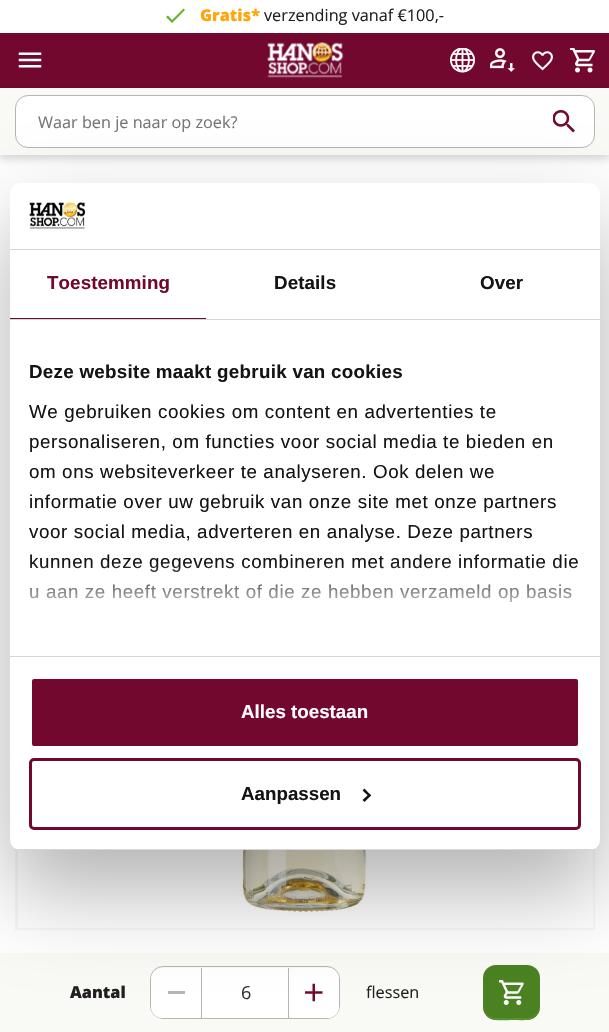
void draw(SkCanvas* canvas) {
    SkPaint paint;
    paint.setAntiAlias(true);
    auto spacedText = [&](const char* s, float x, float y, const SkFont& font, const SkPaint& ink, float letter, float word) {
        std::vector<SkGlyphID> glyphs(font.countText(s, strlen(s), SkTextEncoding::kUTF8));
        std::vector<float> xs(glyphs.size());
        font.textToGlyphs(s, strlen(s), SkTextEncoding::kUTF8, glyphs);
        font.getXPos(glyphs, xs, x);
        float extra = 0;
        for (size_t i = 0; i < glyphs.size(); i++) {
            xs[i] += extra;
            extra += letter + word * (glyphs[i] == font.unicharToGlyph(' '));
        }
        canvas->drawTextBlob(SkTextBlob::MakeFromPosHGlyphs(glyphs, xs, y, font), 0, 0, ink);
    };
    canvas->clear(0xFFFFFFFF);
    paint.setColor(0xFF65B32E);
    canvas->drawPath(SkPathBuilder().moveTo(185, 10).lineTo(172, 23).lineTo(166, 17).lineTo(168, 15.5f).lineTo(172, 20).lineTo(183.5f, 8.5f).close().detach(), paint);
    SkFont font1(fontMgr->matchFamilyStyle("Open Sans", SkFontStyle(800, SkFontStyle::kNormal_Width, SkFontStyle::kUpright_Slant)), 16.25f);
    font1.setSubpixel(true);
    paint.setColor(0xFFFFA50A);
    canvas->drawString("Gratis*", 200, 21, font1, paint);
    SkFont font2(fontMgr->matchFamilyStyle("Open Sans", SkFontStyle::Normal()), 16.25f);
    font2.setSubpixel(true);
    paint.setColor(0xFF231F20);
    canvas->drawString("verzending vanaf €100,-", 264, 21, font2, paint);
    paint.setColor(0xFF72082E);
    canvas->drawRect(SkRect::MakeXYWH(0, 33, 609, 55), paint);
    canvas->drawImageRect(SkImages::DeferredFromEncodedData(SkData::MakeFromFileName("img1.png")), SkRect::MakeXYWH(18, 52, 24, 16), SkSamplingOptions());
    canvas->drawImageRect(SkImages::DeferredFromEncodedData(SkData::MakeFromFileName("img2.png")), SkRect::MakeXYWH(267, 42, 77, 36), SkSamplingOptions());
    canvas->drawImageRect(SkImages::DeferredFromEncodedData(SkData::MakeFromFileName("img3.png")), SkRect::MakeXYWH(450, 48, 25, 25), SkSamplingOptions());
    canvas->drawImageRect(SkImages::DeferredFromEncodedData(SkData::MakeFromFileName("img4.png")), SkRect::MakeXYWH(490, 48, 25, 24), SkSamplingOptions());
    canvas->drawImageRect(SkImages::DeferredFromEncodedData(SkData::MakeFromFileName("img5.png")), SkRect::MakeXYWH(532, 51, 21, 20), SkSamplingOptions());
    canvas->drawImageRect(SkImages::DeferredFromEncodedData(SkData::MakeFromFileName("img6.png")), SkRect::MakeXYWH(570, 48, 25, 25), SkSamplingOptions());
    paint.setColor(0x29000000);
    paint.setMaskFilter(SkMaskFilter::MakeBlur(kNormal_SkBlurStyle, 4));
    canvas->drawRect(SkRect::MakeXYWH(0, 91, 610, 68), paint);
    paint.setMaskFilter(nullptr);
    paint.setColor(0xFFF9F9F6);
    canvas->drawRect(SkRect::MakeXYWH(0, 88, 609, 67), paint);
    paint.setColor(0xFFFFFFFF);
    canvas->drawRoundRect(SkRect::MakeXYWH(15.5f, 95.5f, 579, 52), 12.5f, 12.5f, paint);
    paint.setStyle(SkPaint::kStroke_Style);
    paint.setStrokeWidth(1);
    paint.setColor(0xFFB5B5B5);
    canvas->drawRoundRect(SkRect::MakeXYWH(15.5f, 95.5f, 579, 52), 12.5f, 12.5f, paint);
    paint.setStyle(SkPaint::kFill_Style);
    paint.setColor(0xFF757575);
    canvas->drawString("Waar ben je naar op zoek?", 38, 128, font2, paint);
    canvas->drawImageRect(SkImages::DeferredFromEncodedData(SkData::MakeFromFileName("img7.png")), SkRect::MakeXYWH(553, 110, 22, 23), SkSamplingOptions());
    paint.setStyle(SkPaint::kStroke_Style);
    paint.setStrokeWidth(3);
    paint.setColor(0xFFF7F7F7);
    canvas->drawRect(SkRect::MakeXYWH(16.5f, 351.5f, 577, 577), paint);
    canvas->drawImageRect(SkImages::DeferredFromEncodedData(SkData::MakeFromFileName("img8.png")), SkRect::MakeXYWH(18, 849, 575, 79), SkSamplingOptions());
    paint.setStyle(SkPaint::kFill_Style);
    paint.setColor(0xFFF9F9F6);
    canvas->drawRect(SkRect::MakeXYWH(0, 953, 609, 79), paint);
    paint.setStyle(SkPaint::kStroke_Style);
    paint.setStrokeWidth(1);
    paint.setColor(0xFFB5B5B5);
    canvas->drawRoundRect(SkRect::MakeXYWH(150.5f, 966.5f, 189, 52), 12.5f, 12.5f, paint);
    paint.setStyle(SkPaint::kFill_Style);
    paint.setColor(0xFFFFFFFF);
    canvas->drawPath(SkPathBuilder().moveTo(162, 968).lineTo(197, 968).cubicTo(199, 968, 201, 970, 201, 972).lineTo(201, 1014).cubicTo(201, 1016, 199, 1018, 197, 1018).lineTo(162, 1018).cubicTo(156, 1018, 151, 1013, 151, 1007).lineTo(151, 979).cubicTo(151, 973, 156, 968, 162, 968).close().detach(), paint);
    paint.setColor(0xFFB5B5B5);
    canvas->drawRect(SkRect::MakeXYWH(168, 991, 17, 3), paint);
    paint.setColor(0xFFFFFFFF);
    canvas->drawRect(SkRect::MakeXYWH(202, 968, 86, 50), paint);
    paint.setColor(0xFFB5B5B5);
    canvas->drawRect(SkRect::MakeXYWH(288, 968, 1, 50), paint);
    canvas->drawRect(SkRect::MakeXYWH(201, 968, 1, 50), paint);
    paint.setColor(0xFFFFFFFF);
    canvas->drawPath(SkPathBuilder().moveTo(293, 968).lineTo(328, 968).cubicTo(334, 968, 339, 973, 339, 979).lineTo(339, 1007).cubicTo(339, 1013, 334, 1018, 328, 1018).lineTo(293, 1018).cubicTo(291, 1018, 289, 1016, 289, 1014).lineTo(289, 972).cubicTo(289, 970, 291, 968, 293, 968).close().detach(), paint);
    canvas->drawImageRect(SkImages::DeferredFromEncodedData(SkData::MakeFromFileName("img10.png")), SkRect::MakeXYWH(305, 983, 18, 19), SkSamplingOptions());
    paint.setColor(0xFF4A8221);
    canvas->drawRoundRect(SkRect::MakeXYWH(483, 965, 57, 55), 13, 13, paint);
    paint.setColor(0xFF599131);
    canvas->drawPath(SkPathBuilder().moveTo(484, 1011).cubicTo(488, 1023, 502, 1020, 512, 1020).cubicTo(524, 1020, 540, 1023, 540, 1005).cubicTo(540, 1012, 534, 1018, 528, 1018).lineTo(495, 1018).cubicTo(490, 1018, 486, 1015, 484, 1011).close().detach(), paint);
    canvas->drawImageRect(SkImages::DeferredFromEncodedData(SkData::MakeFromFileName("img11.png")), SkRect::MakeXYWH(499, 980, 25, 25), SkSamplingOptions());
    paint.setColor(0x4D000000);
    paint.setMaskFilter(SkMaskFilter::MakeBlur(kNormal_SkBlurStyle, 42.5f));
    canvas->drawRoundRect(SkRect::MakeXYWH(10, 223, 590, 667), 10, 10, paint);
    paint.setMaskFilter(nullptr);
    paint.setColor(0xFFFFFFFF);
    canvas->drawRoundRect(SkRect::MakeXYWH(10, 183, 590, 667), 10, 10, paint);
    paint.setColor(0xFFD6D6D6);
    canvas->drawRect(SkRect::MakeXYWH(10, 249, 590, 1), paint);
    canvas->drawImageRect(SkImages::DeferredFromEncodedData(SkData::MakeFromFileName("img9.png")), SkRect::MakeXYWH(29, 202, 56, 27), SkSamplingOptions());
    canvas->drawRect(SkRect::MakeXYWH(10, 319, 590, 1), paint);
    paint.setColor(0xFF72082E);
    canvas->drawRect(SkRect::MakeXYWH(10, 318, 196, 1), paint);
    SkFont font3(fontMgr->matchFamilyStyle("Liberation Sans", SkFontStyle::Bold()), 18.75f);
    font3.setSubpixel(true);
    spacedText("Toestemming", 47, 289, font3, paint, 0.1f, 0);
    paint.setColor(0xFF141414);
    spacedText("Details", 274, 289, font3, paint, 0.1f, 0);
    spacedText("Over", 480, 289, font3, paint, 0.1f, 0);
    paint.setColor(0xFFD6D6D6);
    canvas->drawRect(SkRect::MakeXYWH(10, 656, 590, 1), paint);
    paint.setColor(0xFF141414);
    spacedText("Deze website maakt gebruik van cookies", 29, 378, font3, paint, 0.3f, 0);
    SkFont font4(fontMgr->matchFamilyStyle("Liberation Sans", SkFontStyle::Normal()), 18.75f);
    font4.setSubpixel(true);
    spacedText("We gebruiken cookies om content en advertenties te", 29, 418, font4, paint, 0.62f, 0);
    spacedText("personaliseren, om functies voor social media te bieden en", 29, 448, font4, paint, 0.62f, 0);
    spacedText("om ons websiteverkeer te analyseren. Ook delen we", 29, 478, font4, paint, 0.62f, 0);
    spacedText("informatie over uw gebruik van onze site met onze partners", 29, 508, font4, paint, 0.62f, 0);
    spacedText("voor social media, adverteren en analyse. Deze partners", 29, 538, font4, paint, 0.62f, 0);
    spacedText("kunnen deze gegevens combineren met andere informatie die", 29, 568, font4, paint, 0.62f, 0);
    spacedText("u aan ze heeft verstrekt of die ze hebben verzameld op basis", 29, 598, font4, paint, 0.62f, 0);
    {
        const SkColor colors[] = {0xFFFFFFFF, 0xCCFFFFFF, 0x00FFFFFF};
        const float stops[] = {0, 0.5f, 1};
        const SkPoint ends[] = {{297, 656}, {297, 563}};
        paint.setShader(SkGradientShader::MakeLinear(ends, colors, stops, 3, SkTileMode::kClamp));
        paint.setAlpha(255);
    }
    canvas->drawRect(SkRect::MakeXYWH(29, 564, 549, 38), paint);
    canvas->save();
    canvas->clipPath(SkPathBuilder().moveTo(20, 183).lineTo(590, 183).cubicTo(595.5f, 183, 600, 187.5f, 600, 193).lineTo(600, 840).cubicTo(600, 845.5f, 595.5f, 850, 590, 850).lineTo(20, 850).cubicTo(14.5f, 850, 10, 845.5f, 10, 840).lineTo(10, 193).cubicTo(10, 187.5f, 14.5f, 183, 20, 183).close().detach(), true);
    paint.setShader(nullptr);
    paint.setColor(0xFFD6D6D6);
    canvas->drawRect(SkRect::MakeXYWH(10, 849, 590, 1), paint);
    canvas->restore();
    paint.setColor(0xFF72082E);
    canvas->drawRoundRect(SkRect::MakeXYWH(30.5f, 677.5f, 549, 70), 3.5f, 3.5f, paint);
    paint.setStyle(SkPaint::kStroke_Style);
    paint.setStrokeWidth(3);
    paint.setColor(0xFFFFFFFF);
    canvas->drawRoundRect(SkRect::MakeXYWH(30.5f, 677.5f, 549, 70), 3.5f, 3.5f, paint);
    paint.setStyle(SkPaint::kFill_Style);
    canvas->drawString("Alles toestaan", 241, 718, font3, paint);
    paint.setStyle(SkPaint::kStroke_Style);
    paint.setColor(0xFF72082E);
    canvas->drawRoundRect(SkRect::MakeXYWH(30.5f, 759.5f, 549, 69), 3.5f, 3.5f, paint);
    paint.setStyle(SkPaint::kFill_Style);
    paint.setColor(0xFF141414);
    canvas->drawString("Aanpassen", 241, 800, font3, paint);
    canvas->drawPath(SkPathBuilder().moveTo(364.5f, 788.5f).lineTo(371, 795.5f).lineTo(369.5f, 797).lineTo(362.5f, 790.5f).close().detach(), paint);
    canvas->drawPath(SkPathBuilder().moveTo(369.5f, 793.5f).lineTo(371, 795.5f).lineTo(364.5f, 802).lineTo(362.5f, 800).close().detach(), paint);
    paint.setColor(0xFF231F20);
    canvas->drawString("Aantal", 70, 998, font1, paint);
    SkFont font5(fontMgr->matchFamilyStyle("Open Sans", SkFontStyle::Normal()), 18);
    font5.setSubpixel(true);
    paint.setColor(0xFF333333);
    canvas->drawString("6", 241, 999, font5, paint);
    paint.setColor(0xFF231F20);
    canvas->drawString("flessen", 366, 998, font2, paint);
}
